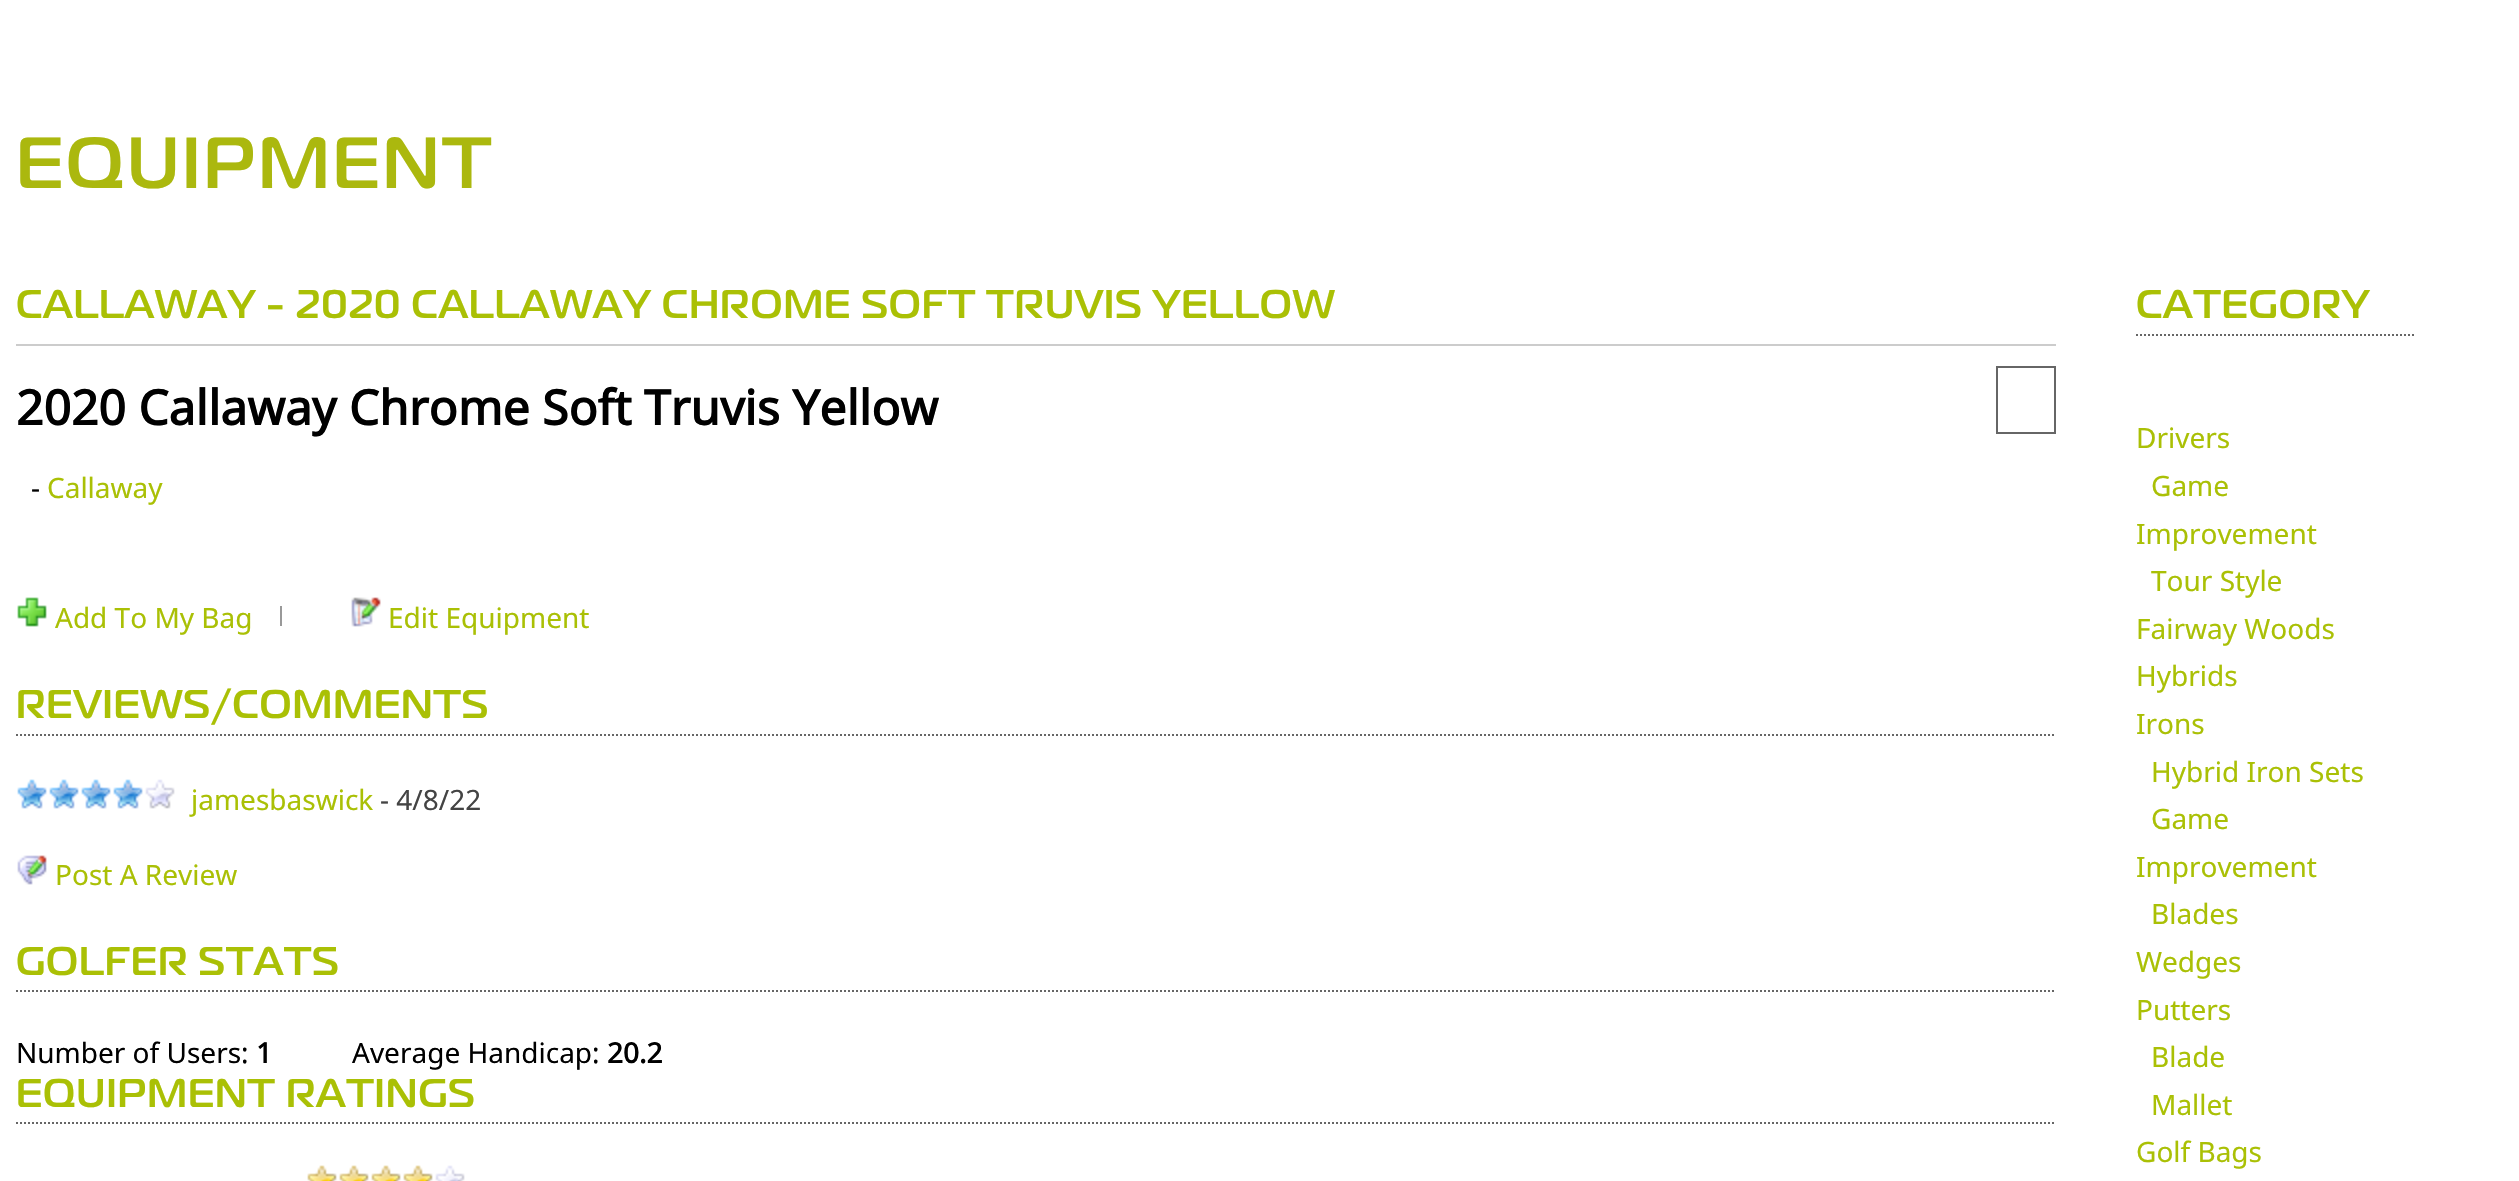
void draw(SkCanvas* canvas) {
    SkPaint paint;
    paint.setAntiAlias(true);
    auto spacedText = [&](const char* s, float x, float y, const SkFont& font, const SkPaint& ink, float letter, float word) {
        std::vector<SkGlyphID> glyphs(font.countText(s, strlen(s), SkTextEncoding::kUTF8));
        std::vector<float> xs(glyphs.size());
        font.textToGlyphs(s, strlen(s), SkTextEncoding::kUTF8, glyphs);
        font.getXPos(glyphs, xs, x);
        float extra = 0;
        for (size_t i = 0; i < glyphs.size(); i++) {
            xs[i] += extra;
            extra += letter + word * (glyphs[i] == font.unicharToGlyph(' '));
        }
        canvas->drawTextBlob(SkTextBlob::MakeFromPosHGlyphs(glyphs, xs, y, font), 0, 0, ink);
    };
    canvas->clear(0xFFFFFFFF);
    SkFont font1(fontMgr->matchFamilyStyle("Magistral", SkFontStyle(500, SkFontStyle::kNormal_Width, SkFontStyle::kUpright_Slant)), 72);
    font1.setSubpixel(true);
    paint.setColor(0xFFABB80E);
    spacedText("EQUIPMENT", 16, 188, font1, paint, 3, 0);
    SkFont font2(fontMgr->matchFamilyStyle("Magistral", SkFontStyle(500, SkFontStyle::kNormal_Width, SkFontStyle::kUpright_Slant)), 40);
    font2.setSubpixel(true);
    paint.setColor(0xFFAAC005);
    spacedText("CALLAWAY - 2020 CALLAWAY CHROME SOFT TRUVIS YELLOW", 16, 318, font2, paint, 1, 0);
    paint.setColor(0xFFCCCCCC);
    canvas->drawRect(SkRect::MakeXYWH(16, 344, 2040, 2), paint);
    SkFont font3(fontMgr->matchFamilyStyle("Noto Sans", SkFontStyle::Bold()), 48);
    font3.setSubpixel(true);
    paint.setColor(0xFF000000);
    canvas->drawString("2020 Callaway Chrome Soft Truvis Yellow", 16, 425, font3, paint);
    paint.setStyle(SkPaint::kStroke_Style);
    paint.setStrokeWidth(2);
    paint.setColor(0xFF666666);
    canvas->drawRect(SkRect::MakeXYWH(1997, 367, 58, 66), paint);
    SkFont font4(fontMgr->matchFamilyStyle("Noto Sans", SkFontStyle::Normal()), 28);
    font4.setSubpixel(true);
    paint.setStyle(SkPaint::kFill_Style);
    paint.setColor(0xFF000000);
    canvas->drawString("-", 31, 498, font4, paint);
    paint.setColor(0xFFAAC005);
    canvas->drawString("Callaway", 47, 498, font4, paint);
    canvas->drawImageRect(SkImages::DeferredFromEncodedData(SkData::MakeFromFileName("img1.png")), SkRect::MakeXYWH(17, 597, 30, 30), SkSamplingOptions());
    canvas->drawString("Add To My Bag", 55, 628, font4, paint);
    paint.setColor(0xFF999999);
    canvas->drawRect(SkRect::MakeXYWH(280, 606, 2, 20), paint);
    canvas->drawImageRect(SkImages::DeferredFromEncodedData(SkData::MakeFromFileName("img2.png")), SkRect::MakeXYWH(351, 597, 30, 30), SkSamplingOptions());
    paint.setColor(0xFFAAC005);
    canvas->drawString("Edit Equipment", 388, 628, font4, paint);
    paint.setStyle(SkPaint::kStroke_Style);
    paint.setColor(0xFF666666);
    paint.setPathEffect(SkDashPathEffect::Make({{2, 2}}, 0));
    canvas->drawPath(SkPathBuilder().moveTo(16, 735).lineTo(2056, 735).detach(), paint);
    paint.setPathEffect(nullptr);
    paint.setStyle(SkPaint::kFill_Style);
    paint.setColor(0xFFAAC005);
    spacedText("REVIEWS/COMMENTS", 16, 718, font2, paint, 1, 0);
    canvas->drawImageRect(SkImages::DeferredFromEncodedData(SkData::MakeFromFileName("img3.png")), SkRect::MakeXYWH(17, 779, 30, 30), SkSamplingOptions());
    canvas->drawImageRect(SkImages::DeferredFromEncodedData(SkData::MakeFromFileName("img3.png")), SkRect::MakeXYWH(49, 779, 30, 30), SkSamplingOptions());
    canvas->drawImageRect(SkImages::DeferredFromEncodedData(SkData::MakeFromFileName("img3.png")), SkRect::MakeXYWH(81, 779, 30, 30), SkSamplingOptions());
    canvas->drawImageRect(SkImages::DeferredFromEncodedData(SkData::MakeFromFileName("img3.png")), SkRect::MakeXYWH(113, 779, 30, 30), SkSamplingOptions());
    canvas->drawImageRect(SkImages::DeferredFromEncodedData(SkData::MakeFromFileName("img4.png")), SkRect::MakeXYWH(145, 779, 30, 30), SkSamplingOptions());
    canvas->drawString("jamesbaswick", 191, 810, font4, paint);
    paint.setColor(0xFF444444);
    canvas->drawString("- 4/8/22", 380, 810, font4, paint);
    canvas->drawImageRect(SkImages::DeferredFromEncodedData(SkData::MakeFromFileName("img5.png")), SkRect::MakeXYWH(17, 855, 30, 30), SkSamplingOptions());
    paint.setColor(0xFFAAC005);
    canvas->drawString("Post A Review", 55, 885, font4, paint);
    paint.setStyle(SkPaint::kStroke_Style);
    paint.setColor(0xFF666666);
    paint.setPathEffect(SkDashPathEffect::Make({{2, 2}}, 0));
    canvas->drawPath(SkPathBuilder().moveTo(16, 991).lineTo(2056, 991).detach(), paint);
    paint.setPathEffect(nullptr);
    paint.setStyle(SkPaint::kFill_Style);
    paint.setColor(0xFFAAC005);
    spacedText("GOLFER STATS", 16, 975, font2, paint, 1, 0);
    paint.setColor(0xFF000000);
    canvas->drawString("Number of Users:", 16, 1063, font4, paint);
    SkFont font5(fontMgr->matchFamilyStyle("Noto Sans", SkFontStyle::Bold()), 28);
    font5.setSubpixel(true);
    canvas->drawString("1", 256, 1063, font5, paint);
    canvas->drawString("Average Handicap:", 352, 1063, font4, paint);
    canvas->drawString("20.2", 607, 1063, font5, paint);
    paint.setStyle(SkPaint::kStroke_Style);
    paint.setColor(0xFF666666);
    paint.setPathEffect(SkDashPathEffect::Make({{2, 2}}, 0));
    canvas->drawPath(SkPathBuilder().moveTo(16, 1123).lineTo(2056, 1123).detach(), paint);
    paint.setPathEffect(nullptr);
    paint.setStyle(SkPaint::kFill_Style);
    paint.setColor(0xFFAAC005);
    spacedText("EQUIPMENT RATINGS", 16, 1107, font2, paint, 1, 0);
    canvas->drawImageRect(SkImages::DeferredFromEncodedData(SkData::MakeFromFileName("img6.png")), SkRect::MakeXYWH(307, 1165, 30, 16), SkSamplingOptions());
    canvas->drawImageRect(SkImages::DeferredFromEncodedData(SkData::MakeFromFileName("img6.png")), SkRect::MakeXYWH(339, 1165, 30, 16), SkSamplingOptions());
    canvas->drawImageRect(SkImages::DeferredFromEncodedData(SkData::MakeFromFileName("img6.png")), SkRect::MakeXYWH(371, 1165, 30, 16), SkSamplingOptions());
    canvas->drawImageRect(SkImages::DeferredFromEncodedData(SkData::MakeFromFileName("img6.png")), SkRect::MakeXYWH(403, 1165, 30, 16), SkSamplingOptions());
    canvas->drawImageRect(SkImages::DeferredFromEncodedData(SkData::MakeFromFileName("img7.png")), SkRect::MakeXYWH(435, 1165, 30, 16), SkSamplingOptions());
    paint.setStyle(SkPaint::kStroke_Style);
    paint.setColor(0xFF666666);
    paint.setPathEffect(SkDashPathEffect::Make({{2, 2}}, 0));
    canvas->drawPath(SkPathBuilder().moveTo(2136, 335).lineTo(2416, 335).detach(), paint);
    paint.setPathEffect(nullptr);
    paint.setStyle(SkPaint::kFill_Style);
    paint.setColor(0xFFAAC005);
    spacedText("CATEGORY", 2136, 318, font2, paint, 1, 0);
    canvas->drawString("Drivers", 2136, 448, font4, paint);
    canvas->drawString("Game", 2151, 496, font4, paint);
    canvas->drawString("Improvement", 2136, 544, font4, paint);
    canvas->drawString("Tour Style", 2151, 591, font4, paint);
    canvas->drawString("Fairway Woods", 2136, 639, font4, paint);
    canvas->drawString("Hybrids", 2136, 686, font4, paint);
    canvas->drawString("Irons", 2136, 734, font4, paint);
    canvas->drawString("Hybrid Iron Sets", 2151, 782, font4, paint);
    canvas->drawString("Game", 2151, 829, font4, paint);
    canvas->drawString("Improvement", 2136, 877, font4, paint);
    canvas->drawString("Blades", 2151, 924, font4, paint);
    canvas->drawString("Wedges", 2136, 972, font4, paint);
    canvas->drawString("Putters", 2136, 1020, font4, paint);
    canvas->drawString("Blade", 2151, 1067, font4, paint);
    canvas->drawString("Mallet", 2151, 1115, font4, paint);
    canvas->drawString("Golf Bags", 2136, 1162, font4, paint);
}
